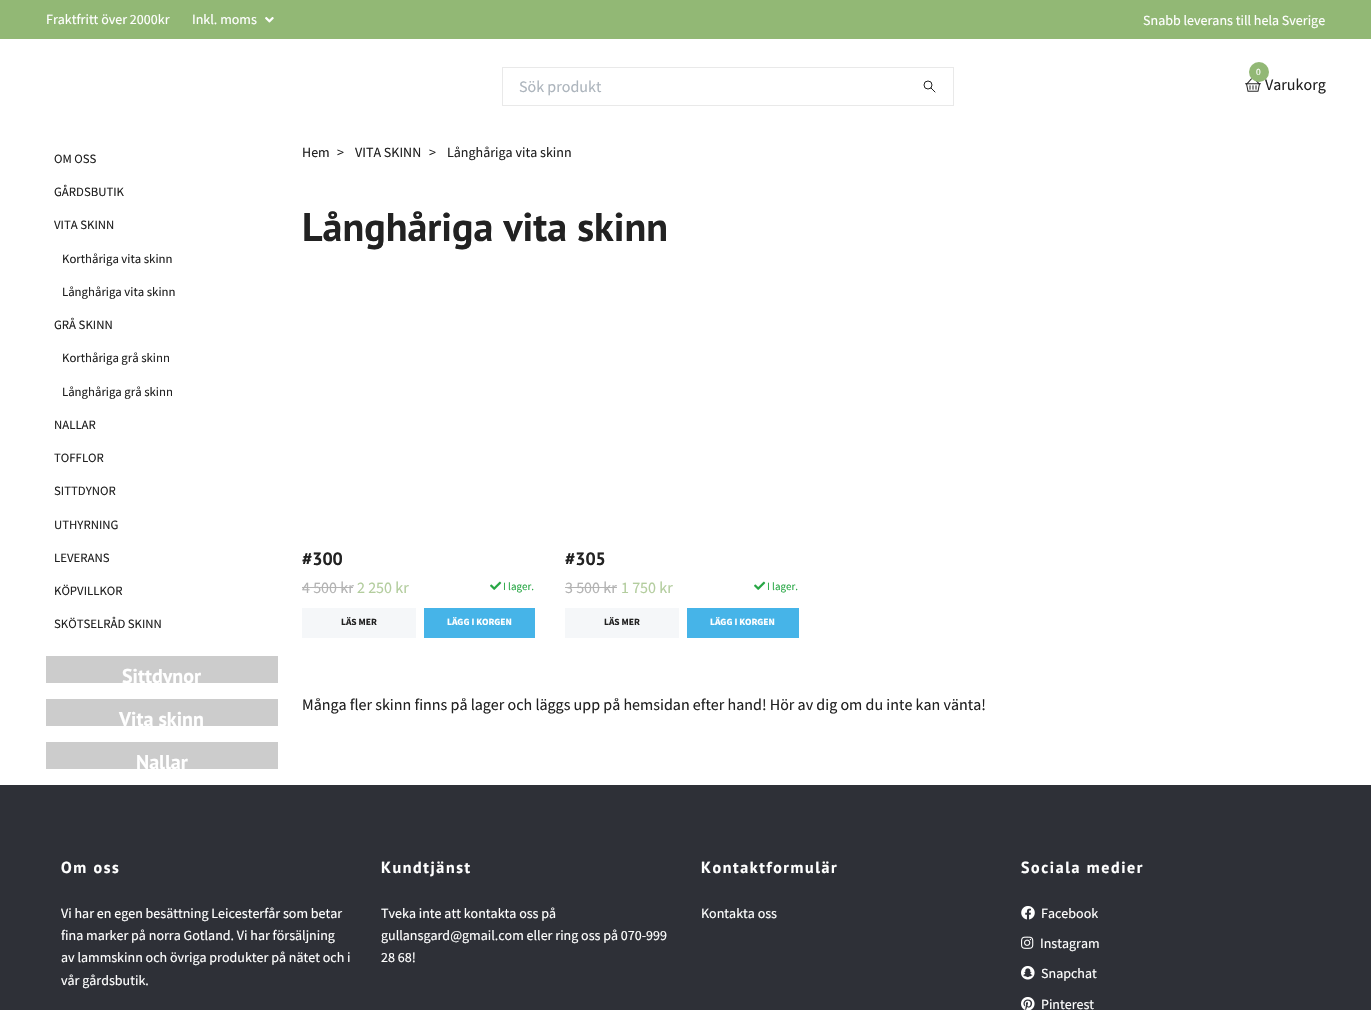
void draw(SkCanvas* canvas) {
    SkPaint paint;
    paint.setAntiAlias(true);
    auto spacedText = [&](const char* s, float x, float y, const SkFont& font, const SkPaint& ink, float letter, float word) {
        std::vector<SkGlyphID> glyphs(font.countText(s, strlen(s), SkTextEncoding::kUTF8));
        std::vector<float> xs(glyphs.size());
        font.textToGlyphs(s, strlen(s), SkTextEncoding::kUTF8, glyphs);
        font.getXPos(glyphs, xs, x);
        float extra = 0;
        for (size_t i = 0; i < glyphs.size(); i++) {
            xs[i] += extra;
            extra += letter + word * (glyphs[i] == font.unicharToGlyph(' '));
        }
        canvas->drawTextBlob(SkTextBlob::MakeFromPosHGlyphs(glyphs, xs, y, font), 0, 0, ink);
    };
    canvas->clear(0xFFFFFFFF);
    paint.setColor(0xFF92B875);
    canvas->drawRect(SkRect::MakeXYWH(0, 0, 1371, 39), paint);
    SkFont font1(fontMgr->matchFamilyStyle("Source Sans Pro", SkFontStyle::Normal()), 14);
    font1.setSubpixel(true);
    paint.setColor(0xFFFFFFFF);
    canvas->drawString("Fraktfritt över 2000kr", 46, 24, font1, paint);
    canvas->drawString("Inkl. moms", 192, 24, font1, paint);
    canvas->drawImageRect(SkImages::DeferredFromEncodedData(SkData::MakeFromFileName("img1.png")), SkRect::MakeXYWH(265, 17, 9, 6), SkSamplingOptions());
    canvas->drawString("Snabb leverans till hela Sverige", 1143, 25, font1, paint);
    paint.setStyle(SkPaint::kStroke_Style);
    paint.setStrokeWidth(1);
    paint.setColor(0xFFE9E9E9);
    canvas->drawRect(SkRect::MakeXYWH(502.5f, 67.5f, 451, 38), paint);
    SkFont font2(fontMgr->matchFamilyStyle("Source Sans Pro", SkFontStyle::Normal()), 16);
    font2.setSubpixel(true);
    paint.setStyle(SkPaint::kFill_Style);
    paint.setColor(0xFFADB5BD);
    canvas->drawString("Sök produkt", 519, 92, font2, paint);
    paint.setStyle(SkPaint::kStroke_Style);
    paint.setStrokeCap(SkPaint::kRound_Cap);
    paint.setStrokeJoin(SkPaint::kRound_Join);
    paint.setColor(0xFF222222);
    canvas->drawPath(SkPathBuilder().moveTo(931, 88).lineTo(935, 92).detach(), paint);
    paint.setStrokeCap(SkPaint::kButt_Cap);
    paint.setStrokeJoin(SkPaint::kMiter_Join);
    canvas->drawCircle(928, 85, 4, paint);
    canvas->drawImageRect(SkImages::DeferredFromEncodedData(SkData::MakeFromFileName("img2.png")), SkRect::MakeXYWH(1245, 78, 16, 14), SkSamplingOptions());
    paint.setStyle(SkPaint::kFill_Style);
    canvas->drawString("Varukorg", 1265, 90, font2, paint);
    paint.setColor(0xFF92B875);
    canvas->drawCircle(1259, 72, 10, paint);
    SkFont font3(fontMgr->matchFamilyStyle("Source Sans Pro", SkFontStyle::Normal()), 9.5f);
    font3.setSubpixel(true);
    paint.setColor(0xFFFFFFFF);
    canvas->drawString("0", 1256, 75, font3, paint);
    SkFont font4(fontMgr->matchFamilyStyle("Source Sans Pro", SkFontStyle::Normal()), 12.75f);
    font4.setSubpixel(true);
    paint.setColor(0xFF222222);
    canvas->drawString("OM OSS", 54, 163, font4, paint);
    canvas->drawString("GÅRDSBUTIK", 54, 196, font4, paint);
    canvas->drawString("VITA SKINN", 54, 229, font4, paint);
    canvas->drawString("Korthåriga vita skinn", 62, 263, font4, paint);
    canvas->drawString("Långhåriga vita skinn", 62, 296, font4, paint);
    canvas->drawString("GRÅ SKINN", 54, 329, font4, paint);
    canvas->drawString("Korthåriga grå skinn", 62, 362, font4, paint);
    canvas->drawString("Långhåriga grå skinn", 62, 396, font4, paint);
    canvas->drawString("NALLAR", 54, 429, font4, paint);
    canvas->drawString("TOFFLOR", 54, 462, font4, paint);
    canvas->drawString("SITTDYNOR", 54, 495, font4, paint);
    canvas->drawString("UTHYRNING", 54, 529, font4, paint);
    canvas->drawString("LEVERANS", 54, 562, font4, paint);
    canvas->drawString("KÖPVILLKOR", 54, 595, font4, paint);
    canvas->drawString("SKÖTSELRÅD SKINN", 54, 628, font4, paint);
    paint.setColor(0xFFCCCCCC);
    canvas->drawRect(SkRect::MakeXYWH(46, 656, 232, 27), paint);
    canvas->save();
    canvas->clipRect(SkRect::MakeXYWH(46, 656, 232, 27));
    SkFont font5(fontMgr->matchFamilyStyle("PT Sans", SkFontStyle::Bold()), 20);
    font5.setSubpixel(true);
    paint.setColor(0xFFFFFFFF);
    canvas->drawString("Sittdynor", 122, 683, font5, paint);
    canvas->restore();
    paint.setColor(0xFFCCCCCC);
    canvas->drawRect(SkRect::MakeXYWH(46, 699, 232, 27), paint);
    canvas->save();
    canvas->clipRect(SkRect::MakeXYWH(46, 699, 232, 27));
    paint.setColor(0xFFFFFFFF);
    canvas->drawString("Vita skinn", 119, 726, font5, paint);
    canvas->restore();
    paint.setColor(0xFFCCCCCC);
    canvas->drawRect(SkRect::MakeXYWH(46, 742, 232, 27), paint);
    canvas->save();
    canvas->clipRect(SkRect::MakeXYWH(46, 742, 232, 27));
    paint.setColor(0xFFFFFFFF);
    canvas->drawString("Nallar", 136, 769, font5, paint);
    canvas->restore();
    paint.setColor(0xFF222222);
    canvas->drawString("Hem", 302, 157, font1, paint);
    canvas->drawString(">", 337, 157, font1, paint);
    canvas->drawString("VITA SKINN", 355, 157, font1, paint);
    canvas->drawString(">", 429, 157, font1, paint);
    canvas->drawString("Långhåriga vita skinn", 447, 157, font1, paint);
    SkFont font6(fontMgr->matchFamilyStyle("PT Sans", SkFontStyle::Bold()), 40);
    font6.setSubpixel(true);
    canvas->drawString("Långhåriga vita skinn", 302, 241, font6, paint);
    SkFont font7(fontMgr->matchFamilyStyle("PT Sans", SkFontStyle::Bold()), 18);
    font7.setSubpixel(true);
    canvas->drawString("#300", 302, 565, font7, paint);
    paint.setColor(0xFFB3B3B3);
    canvas->drawString("4 500 kr", 302, 593, font2, paint);
    canvas->drawRect(SkRect::MakeXYWH(302, 587, 51, 1), paint);
    paint.setColor(0xFFB3CD9E);
    canvas->drawString("2 250 kr", 357, 593, font2, paint);
    canvas->drawImageRect(SkImages::DeferredFromEncodedData(SkData::MakeFromFileName("img3.png")), SkRect::MakeXYWH(490, 581, 12, 9), SkSamplingOptions());
    SkFont font8(fontMgr->matchFamilyStyle("Source Sans Pro", SkFontStyle::Normal()), 11);
    font8.setSubpixel(true);
    paint.setColor(0xFF28A745);
    canvas->drawString("I lager.", 503, 590, font8, paint);
    paint.setColor(0xFFF5F7F9);
    canvas->drawRect(SkRect::MakeXYWH(302, 608, 114, 30), paint);
    SkFont font9(fontMgr->matchFamilyStyle("Source Sans Pro", SkFontStyle::Bold()), 9.5f);
    font9.setSubpixel(true);
    paint.setColor(0xFF222222);
    canvas->drawString("LÄS MER", 341, 625, font9, paint);
    paint.setColor(0xFF46B4E8);
    canvas->drawRect(SkRect::MakeXYWH(424, 608, 111, 30), paint);
    paint.setColor(0xFFFFFFFF);
    canvas->drawString("LÄGG I KORGEN", 447, 625, font9, paint);
    paint.setColor(0xFF222222);
    canvas->drawString("#305", 565, 565, font7, paint);
    paint.setColor(0xFFB3B3B3);
    canvas->drawString("3 500 kr", 565, 593, font2, paint);
    canvas->drawRect(SkRect::MakeXYWH(565, 587, 52, 1), paint);
    paint.setColor(0xFFB3CD9E);
    canvas->drawString("1 750 kr", 621, 593, font2, paint);
    canvas->drawImageRect(SkImages::DeferredFromEncodedData(SkData::MakeFromFileName("img3.png")), SkRect::MakeXYWH(754, 581, 12, 9), SkSamplingOptions());
    paint.setColor(0xFF28A745);
    canvas->drawString("I lager.", 767, 590, font8, paint);
    paint.setColor(0xFFF5F7F9);
    canvas->drawRect(SkRect::MakeXYWH(565, 608, 114, 30), paint);
    paint.setColor(0xFF222222);
    canvas->drawString("LÄS MER", 604, 625, font9, paint);
    paint.setColor(0xFF46B4E8);
    canvas->drawRect(SkRect::MakeXYWH(687, 608, 112, 30), paint);
    paint.setColor(0xFFFFFFFF);
    canvas->drawString("LÄGG I KORGEN", 710, 625, font9, paint);
    paint.setColor(0xFF222222);
    canvas->drawString("Många fler skinn finns på lager och läggs upp på hemsidan efter hand! Hör av dig om du inte kan vänta!", 302, 710, font2, paint);
    paint.setColor(0xFF2E3037);
    canvas->drawRect(SkRect::MakeXYWH(0, 785, 1371, 225), paint);
    SkFont font10(fontMgr->matchFamilyStyle("PT Sans", SkFontStyle::Bold()), 16);
    font10.setSubpixel(true);
    paint.setColor(0xFFFFFFFF);
    spacedText("Om oss", 61, 873, font10, paint, 1.6f, 0);
    canvas->drawString("Vi har en egen besättning Leicesterfår som betar", 61, 918, font1, paint);
    canvas->drawString("fina marker på norra Gotland. Vi har försäljning", 61, 940, font1, paint);
    canvas->drawString("av lammskinn och övriga produkter på nätet och i", 61, 962, font1, paint);
    canvas->drawString("vår gårdsbutik.", 61, 985, font1, paint);
    spacedText("Kundtjänst", 381, 873, font10, paint, 1.6f, 0);
    canvas->drawString("Tveka inte att kontakta oss på", 381, 918, font1, paint);
    canvas->drawString("gullansgard@gmail.com eller ring oss på 070-999", 381, 940, font1, paint);
    canvas->drawString("28 68!", 381, 962, font1, paint);
    spacedText("Kontaktformulär", 701, 873, font10, paint, 1.6f, 0);
    canvas->drawString("Kontakta oss", 701, 918, font1, paint);
    spacedText("Sociala medier", 1021, 873, font10, paint, 1.6f, 0);
    canvas->drawImageRect(SkImages::DeferredFromEncodedData(SkData::MakeFromFileName("img4.png")), SkRect::MakeXYWH(1021, 906, 14, 14), SkSamplingOptions());
    canvas->drawString("Facebook", 1041, 918, font1, paint);
    canvas->drawImageRect(SkImages::DeferredFromEncodedData(SkData::MakeFromFileName("img5.png")), SkRect::MakeXYWH(1021, 936, 13, 13), SkSamplingOptions());
    canvas->drawString("Instagram", 1040, 948, font1, paint);
    canvas->drawImageRect(SkImages::DeferredFromEncodedData(SkData::MakeFromFileName("img6.png")), SkRect::MakeXYWH(1021, 966, 14, 14), SkSamplingOptions());
    canvas->drawString("Snapchat", 1041, 978, font1, paint);
    canvas->drawImageRect(SkImages::DeferredFromEncodedData(SkData::MakeFromFileName("img7.png")), SkRect::MakeXYWH(1021, 997, 14, 13), SkSamplingOptions());
    canvas->drawString("Pinterest", 1041, 1009, font1, paint);
}
